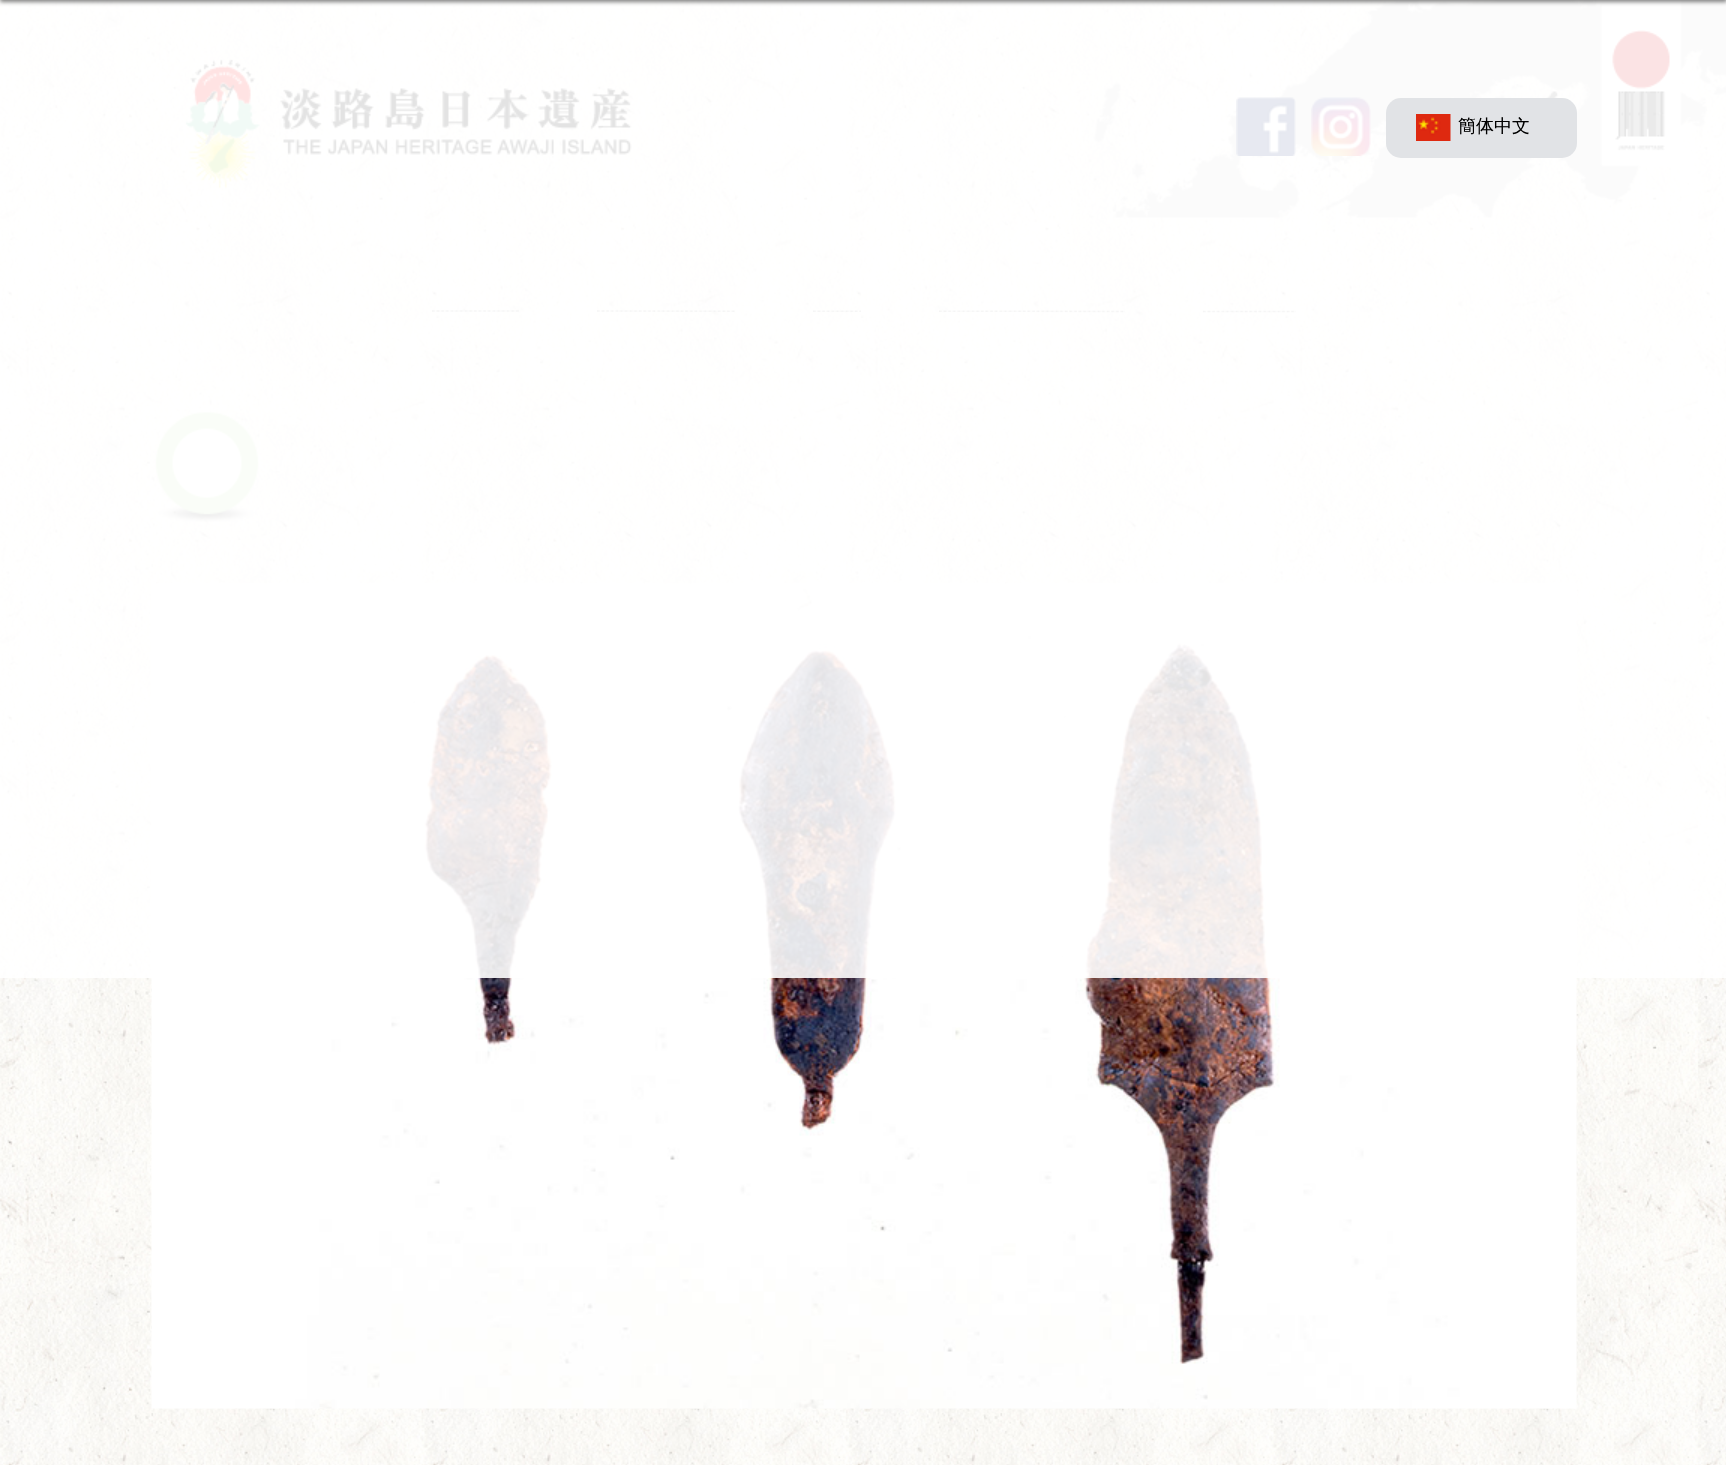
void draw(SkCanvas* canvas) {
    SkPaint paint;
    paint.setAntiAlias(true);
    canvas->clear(0xFFFFFFFF);
    canvas->drawImageRect(SkImages::DeferredFromEncodedData(SkData::MakeFromFileName("img1.png")), SkRect::MakeXYWH(0, 0, 1726, 1465), SkSamplingOptions());
    canvas->drawImageRect(SkImages::DeferredFromEncodedData(SkData::MakeFromFileName("img2.png")), SkRect::MakeXYWH(1090, 0, 636, 218), SkSamplingOptions());
    canvas->drawImageRect(SkImages::DeferredFromEncodedData(SkData::MakeFromFileName("img3.png")), SkRect::MakeXYWH(185, 59, 447, 130), SkSamplingOptions());
    canvas->drawImageRect(SkImages::DeferredFromEncodedData(SkData::MakeFromFileName("img4.png")), SkRect::MakeXYWH(1236, 97, 60, 59), SkSamplingOptions());
    canvas->drawImageRect(SkImages::DeferredFromEncodedData(SkData::MakeFromFileName("img5.png")), SkRect::MakeXYWH(1311, 97, 60, 59), SkSamplingOptions());
    canvas->drawImageRect(SkImages::DeferredFromEncodedData(SkData::MakeFromFileName("img7.png")), SkRect::MakeXYWH(432, 310, 87, 2), SkSamplingOptions());
    canvas->drawImageRect(SkImages::DeferredFromEncodedData(SkData::MakeFromFileName("img8.png")), SkRect::MakeXYWH(597, 310, 138, 2), SkSamplingOptions());
    canvas->drawImageRect(SkImages::DeferredFromEncodedData(SkData::MakeFromFileName("img9.png")), SkRect::MakeXYWH(813, 310, 48, 2), SkSamplingOptions());
    canvas->drawImageRect(SkImages::DeferredFromEncodedData(SkData::MakeFromFileName("img10.png")), SkRect::MakeXYWH(939, 310, 186, 3), SkSamplingOptions());
    canvas->drawImageRect(SkImages::DeferredFromEncodedData(SkData::MakeFromFileName("img11.png")), SkRect::MakeXYWH(1203, 310, 93, 3), SkSamplingOptions());
    canvas->drawImageRect(SkImages::DeferredFromEncodedData(SkData::MakeFromFileName("img12.png")), SkRect::MakeXYWH(155, 412, 104, 110), SkSamplingOptions());
    canvas->drawImageRect(SkImages::DeferredFromEncodedData(SkData::MakeFromFileName("img13.png")), SkRect::MakeXYWH(151, 583, 1426, 826), SkSamplingOptions());
    paint.setColor(0xE3FFFFFF);
    canvas->drawRect(SkRect::MakeXYWH(0, 0, 1726, 978), paint);
    paint.setColor(0x80000000);
    paint.setMaskFilter(SkMaskFilter::MakeBlur(kNormal_SkBlurStyle, 2));
    canvas->drawRect(SkRect::MakeXYWH(0, -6, 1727, 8), paint);
    paint.setMaskFilter(nullptr);
    paint.setColor(0xFFE1E3E6);
    canvas->drawRoundRect(SkRect::MakeXYWH(1386, 98, 191, 60), 15, 15, paint);
    canvas->drawImageRect(SkImages::DeferredFromEncodedData(SkData::MakeFromFileName("img6.png")), SkRect::MakeXYWH(1416, 114, 35, 27), SkSamplingOptions());
    SkFont font1(fontMgr->matchFamilyStyle("WenQuanYi Zen Hei", SkFontStyle(500, SkFontStyle::kNormal_Width, SkFontStyle::kUpright_Slant)), 18);
    font1.setSubpixel(true);
    paint.setColor(0xFF000000);
    canvas->drawString("簡体中文", 1458, 132, font1, paint);
}
